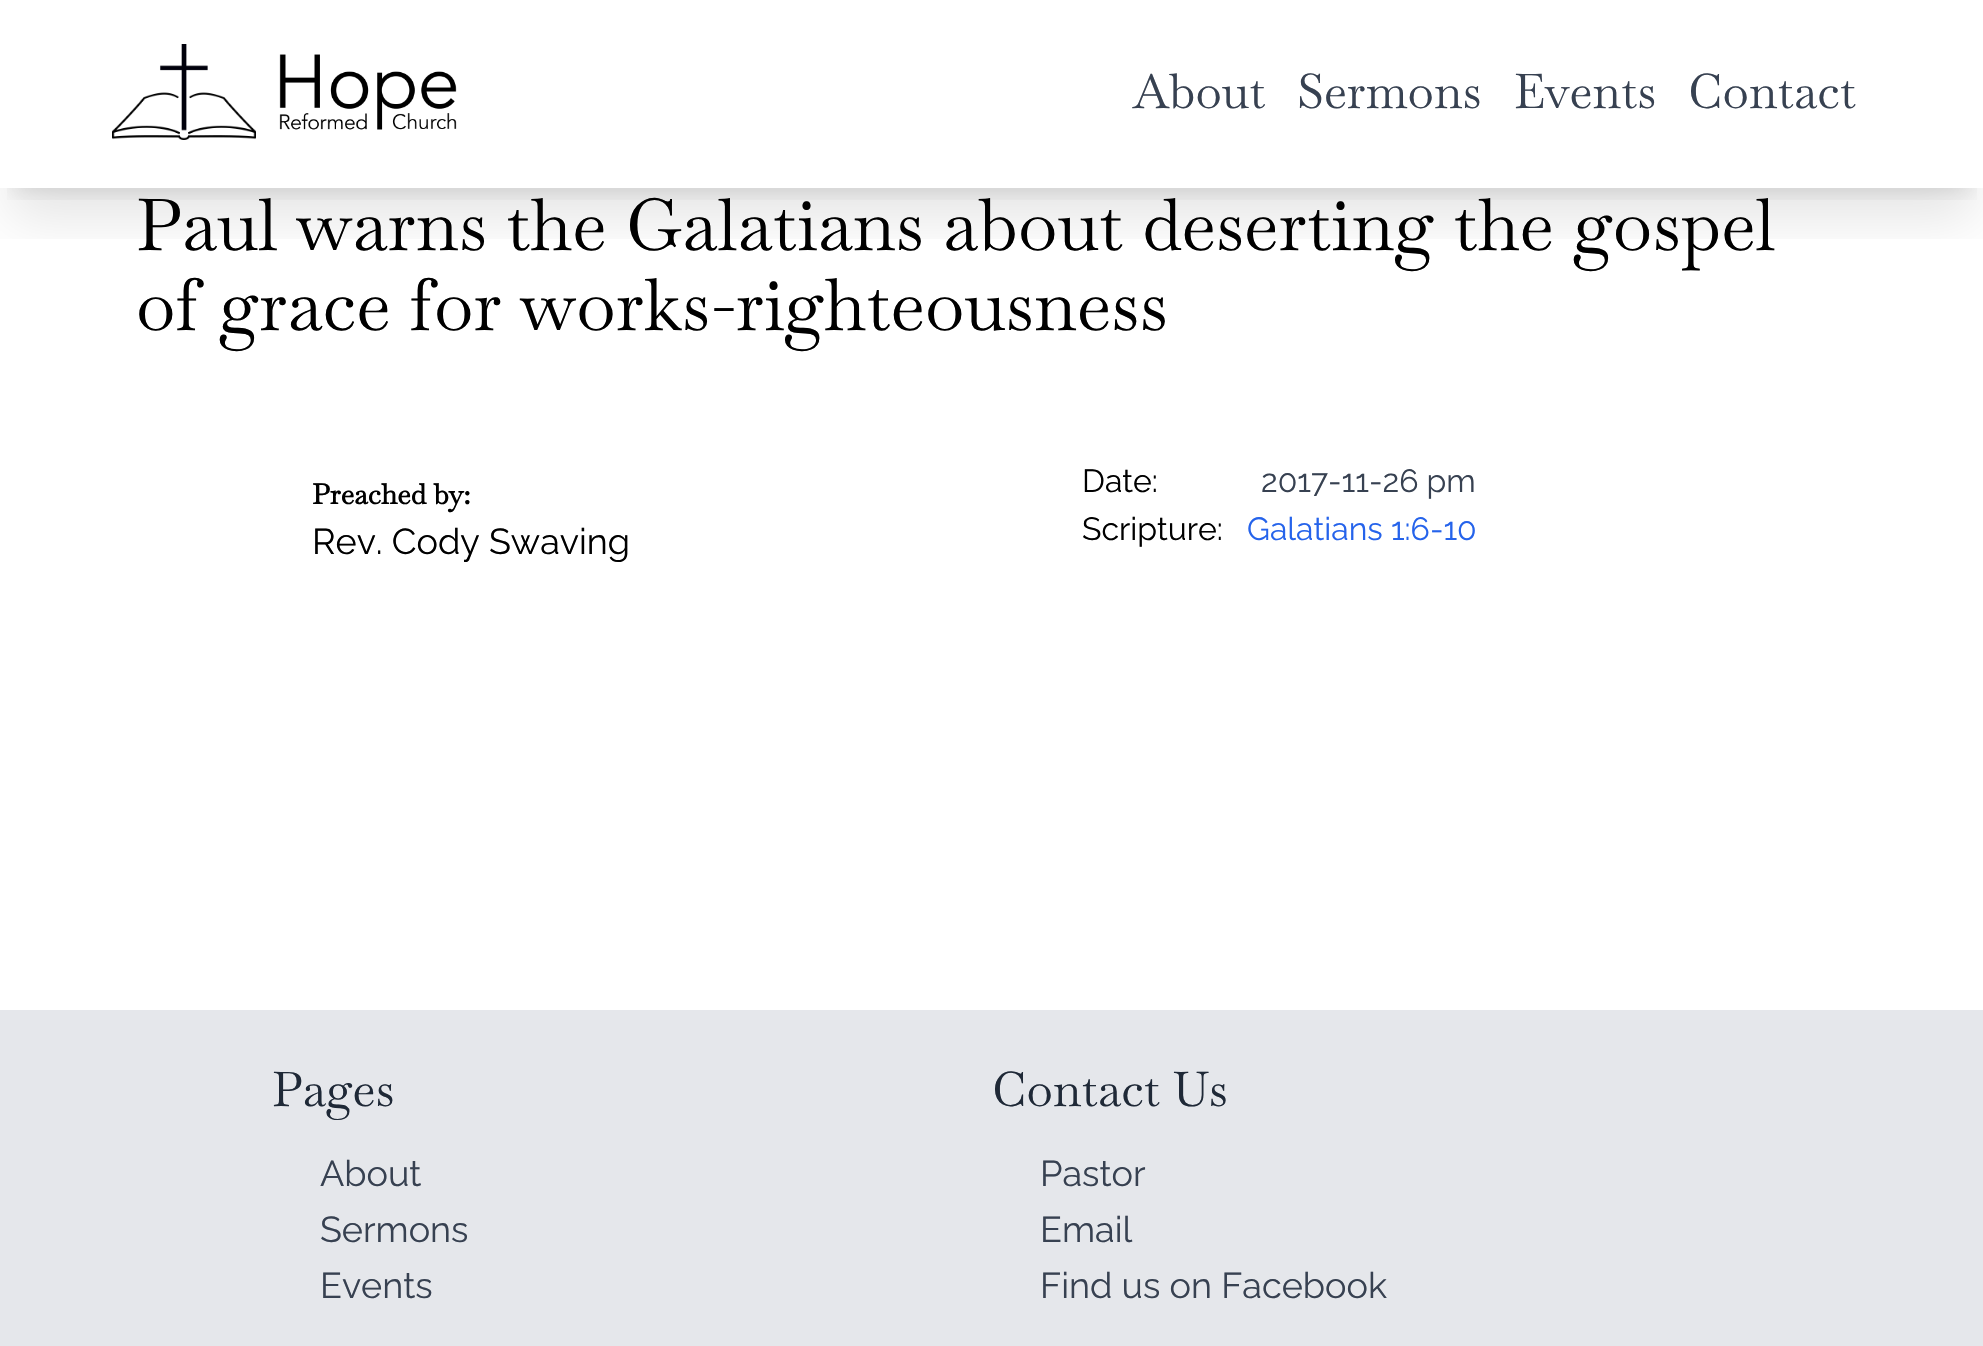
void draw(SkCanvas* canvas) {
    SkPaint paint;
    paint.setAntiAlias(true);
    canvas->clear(0xFFFFFFFF);
    canvas->save();
    canvas->clipRect(SkRect::MakeXYWH(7, 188, 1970, 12));
    paint.setColor(0x1A000000);
    paint.setMaskFilter(SkMaskFilter::MakeBlur(kNormal_SkBlurStyle, 10));
    canvas->drawRect(SkRect::MakeXYWH(12, 28, 1960, 164), paint);
    paint.setMaskFilter(nullptr);
    canvas->restore();
    canvas->save();
    canvas->clipRect(SkRect::MakeXYWH(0, 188, 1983, 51));
    paint.setMaskFilter(SkMaskFilter::MakeBlur(kNormal_SkBlurStyle, 25));
    canvas->drawRect(SkRect::MakeXYWH(10, 50, 1964, 168), paint);
    paint.setMaskFilter(nullptr);
    canvas->restore();
    canvas->drawImageRect(SkImages::DeferredFromEncodedData(SkData::MakeFromFileName("img1.png")), SkRect::MakeXYWH(112, 44, 144, 96), SkSamplingOptions());
    canvas->drawImageRect(SkImages::DeferredFromEncodedData(SkData::MakeFromFileName("img2.png")), SkRect::MakeXYWH(279, 54, 178, 76), SkSamplingOptions());
    SkFont font1(fontMgr->matchFamilyStyle("Baskervville", SkFontStyle::Normal()), 48);
    font1.setSubpixel(true);
    paint.setColor(0xFF374151);
    canvas->drawString("About", 1133, 108, font1, paint);
    canvas->drawString("Sermons", 1297, 108, font1, paint);
    canvas->drawString("Events", 1514, 108, font1, paint);
    canvas->drawString("Contact", 1688, 108, font1, paint);
    SkFont font2(fontMgr->matchFamilyStyle("Baskervville", SkFontStyle::Normal()), 72);
    font2.setSubpixel(true);
    paint.setColor(0xFF000000);
    canvas->drawString("Paul warns the Galatians about deserting the gospel", 136, 250, font2, paint);
    canvas->drawString("of grace for works-righteousness", 136, 330, font2, paint);
    SkFont font3(fontMgr->matchFamilyStyle("Baskervville", SkFontStyle::Bold()), 28);
    font3.setSubpixel(true);
    canvas->drawString("Preached by:", 312, 504, font3, paint);
    SkFont font4(fontMgr->matchFamilyStyle("Raleway", SkFontStyle::Normal()), 36);
    font4.setSubpixel(true);
    canvas->drawString("Rev. Cody Swaving", 312, 554, font4, paint);
    SkFont font5(fontMgr->matchFamilyStyle("Raleway", SkFontStyle::Normal()), 32);
    font5.setSubpixel(true);
    canvas->drawString("Date:", 1082, 492, font5, paint);
    paint.setColor(0xFF374151);
    canvas->drawString("2017-11-26 pm", 1261, 492, font5, paint);
    paint.setColor(0xFF000000);
    canvas->drawString("Scripture:", 1082, 540, font5, paint);
    paint.setColor(0xFF2563EB);
    canvas->drawString("Galatians 1:6-10", 1247, 540, font5, paint);
    paint.setColor(0xFFE5E7EB);
    canvas->drawRect(SkRect::MakeXYWH(0, 1010, 1983, 336), paint);
    paint.setColor(0xFF1F2937);
    canvas->drawString("Pages", 272, 1106, font1, paint);
    paint.setColor(0xFF374151);
    canvas->drawString("About", 320, 1186, font4, paint);
    canvas->drawString("Sermons", 320, 1242, font4, paint);
    canvas->drawString("Events", 320, 1298, font4, paint);
    paint.setColor(0xFF1F2937);
    canvas->drawString("Contact Us", 992, 1106, font1, paint);
    paint.setColor(0xFF374151);
    canvas->drawString("Pastor", 1040, 1186, font4, paint);
    canvas->drawString("Email", 1040, 1242, font4, paint);
    canvas->drawString("Find us on Facebook", 1040, 1298, font4, paint);
}
